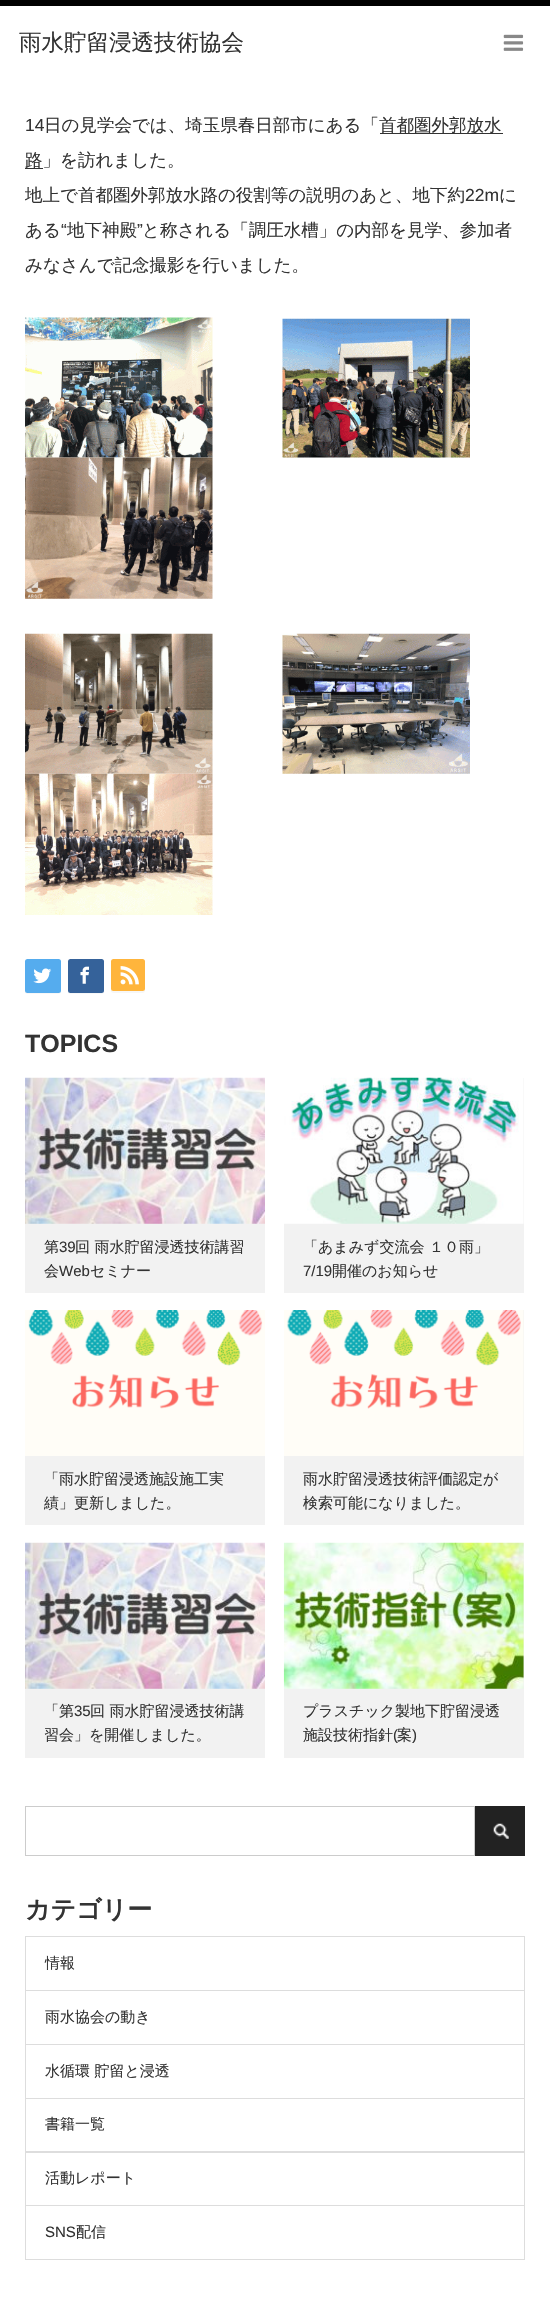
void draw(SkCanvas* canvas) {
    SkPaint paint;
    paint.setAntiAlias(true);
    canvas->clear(0xFFFFFFFF);
    paint.setColor(0xFF000000);
    canvas->drawRect(SkRect::MakeXYWH(0, 0, 550, 6), paint);
    SkFont font1(fontMgr->matchFamilyStyle("WenQuanYi Zen Hei", SkFontStyle(500, SkFontStyle::kNormal_Width, SkFontStyle::kUpright_Slant)), 22.5f);
    font1.setSubpixel(true);
    paint.setColor(0xFF333333);
    canvas->drawString("雨水貯留浸透技術協会", 19, 50, font1, paint);
    canvas->drawImageRect(SkImages::DeferredFromEncodedData(SkData::MakeFromFileName("img1.png")), SkRect::MakeXYWH(503, 34, 21, 17), SkSamplingOptions());
    SkFont font2(fontMgr->matchFamilyStyle("Liberation Sans", SkFontStyle::Normal()), 17.5f);
    font2.setSubpixel(true);
    canvas->drawString("14", 25, 131, font2, paint);
    SkFont font3(fontMgr->matchFamilyStyle("WenQuanYi Zen Hei", SkFontStyle(500, SkFontStyle::kNormal_Width, SkFontStyle::kUpright_Slant)), 17.5f);
    font3.setSubpixel(true);
    canvas->drawString("日の見学会では、埼玉県春日部市にある「", 44, 131, font3, paint);
    canvas->drawRect(SkRect::MakeXYWH(380, 133, 123, 1), paint);
    canvas->drawString("首都圏外郭放水", 379, 131, font3, paint);
    canvas->drawRect(SkRect::MakeXYWH(25, 168, 18, 1), paint);
    canvas->drawString("路」を訪れました。", 25, 166, font3, paint);
    canvas->drawString("地上で首都圏外郭放水路の役割等の説明のあと、地下約", 25, 201, font3, paint);
    canvas->drawString("22m", 465, 201, font2, paint);
    canvas->drawString("に", 499, 201, font3, paint);
    canvas->drawString("ある", 25, 236, font3, paint);
    canvas->drawString("“", 61, 236, font2, paint);
    canvas->drawString("地下神殿", 67, 236, font3, paint);
    canvas->drawString("”", 137, 236, font2, paint);
    canvas->drawString("と称される「調圧水槽」の内部を見学、参加者", 142, 236, font3, paint);
    canvas->drawString("みなさんで記念撮影を行いました。", 25, 271, font3, paint);
    canvas->drawImageRect(SkImages::DeferredFromEncodedData(SkData::MakeFromFileName("img2.png")), SkRect::MakeXYWH(25, 317, 188, 141), SkSamplingOptions());
    canvas->drawImageRect(SkImages::DeferredFromEncodedData(SkData::MakeFromFileName("img3.png")), SkRect::MakeXYWH(282, 318, 188, 140), SkSamplingOptions());
    canvas->drawImageRect(SkImages::DeferredFromEncodedData(SkData::MakeFromFileName("img4.png")), SkRect::MakeXYWH(25, 457, 188, 142), SkSamplingOptions());
    canvas->drawImageRect(SkImages::DeferredFromEncodedData(SkData::MakeFromFileName("img5.png")), SkRect::MakeXYWH(25, 633, 188, 141), SkSamplingOptions());
    canvas->drawImageRect(SkImages::DeferredFromEncodedData(SkData::MakeFromFileName("img6.png")), SkRect::MakeXYWH(282, 633, 188, 141), SkSamplingOptions());
    canvas->drawImageRect(SkImages::DeferredFromEncodedData(SkData::MakeFromFileName("img7.png")), SkRect::MakeXYWH(25, 773, 188, 142), SkSamplingOptions());
    paint.setColor(0xFFF7F7F7);
    canvas->drawPath(SkPathBuilder().moveTo(25, 990).cubicTo(25, 995, 28, 994, 32.5f, 994).lineTo(53.5f, 994).cubicTo(56, 994, 61, 995, 61, 991).cubicTo(60.5f, 992, 59.5f, 992.5f, 59, 992.5f).lineTo(27.5f, 992.5f).cubicTo(26, 992.5f, 25, 991.5f, 25, 990).close().detach(), paint);
    paint.setColor(0xFF55ACEE);
    canvas->drawRoundRect(SkRect::MakeXYWH(25, 959, 36, 34), 2.5f, 2.5f, paint);
    canvas->drawImageRect(SkImages::DeferredFromEncodedData(SkData::MakeFromFileName("img8.png")), SkRect::MakeXYWH(33, 968, 19, 16), SkSamplingOptions());
    paint.setColor(0xFFF7F7F7);
    canvas->drawPath(SkPathBuilder().moveTo(68, 991.5f).cubicTo(68, 993, 69, 994, 70.5f, 994).lineTo(101.5f, 994).cubicTo(103, 994, 104, 993, 104, 991.5f).lineTo(104, 962.5f).lineTo(104, 961.5f).lineTo(104, 990).cubicTo(104, 991.5f, 102.5f, 992.5f, 101, 992.5f).lineTo(70, 992.5f).cubicTo(69, 992.5f, 68.5f, 992, 68, 991.5f).close().detach(), paint);
    paint.setColor(0xFF35629A);
    canvas->drawRoundRect(SkRect::MakeXYWH(68, 959, 36, 34), 2.5f, 2.5f, paint);
    canvas->drawImageRect(SkImages::DeferredFromEncodedData(SkData::MakeFromFileName("img9.png")), SkRect::MakeXYWH(80, 966, 9, 18), SkSamplingOptions());
    paint.setColor(0xFFF7F7F7);
    canvas->drawPath(SkPathBuilder().moveTo(111, 961.5f).lineTo(111, 962.5f).lineTo(111, 990.5f).cubicTo(111, 992, 112, 993, 113.5f, 993).lineTo(142.5f, 993).cubicTo(144, 993, 145, 992, 145, 990.5f).lineTo(145, 989).cubicTo(145, 990, 144, 991, 142.5f, 991).lineTo(114, 991).cubicTo(112.5f, 991, 111, 990, 111, 989).close().detach(), paint);
    paint.setColor(0xFFFFB53C);
    canvas->drawRoundRect(SkRect::MakeXYWH(111, 959, 34, 32), 2.5f, 2.5f, paint);
    canvas->drawImageRect(SkImages::DeferredFromEncodedData(SkData::MakeFromFileName("img10.png")), SkRect::MakeXYWH(120, 966, 19, 19), SkSamplingOptions());
    SkFont font4(fontMgr->matchFamilyStyle("Liberation Sans", SkFontStyle::Bold()), 25);
    font4.setSubpixel(true);
    paint.setColor(0xFF333333);
    canvas->drawString("TOPICS", 25, 1052, font4, paint);
    paint.setColor(0xFFF2F2F2);
    canvas->drawRect(SkRect::MakeXYWH(25, 1223, 240, 70), paint);
    canvas->drawImageRect(SkImages::DeferredFromEncodedData(SkData::MakeFromFileName("img11.png")), SkRect::MakeXYWH(25, 1077, 240, 147), SkSamplingOptions());
    SkFont font5(fontMgr->matchFamilyStyle("WenQuanYi Zen Hei", SkFontStyle(500, SkFontStyle::kNormal_Width, SkFontStyle::kUpright_Slant)), 15);
    font5.setSubpixel(true);
    paint.setColor(0xFF333333);
    canvas->drawString("第", 44, 1252, font5, paint);
    SkFont font6(fontMgr->matchFamilyStyle("Liberation Sans", SkFontStyle::Normal()), 15);
    font6.setSubpixel(true);
    canvas->drawString("39", 59, 1252, font6, paint);
    canvas->drawString("回 雨水貯留浸透技術講習", 75, 1252, font5, paint);
    canvas->drawString("会", 44, 1276, font5, paint);
    canvas->drawString("Web", 59, 1276, font6, paint);
    canvas->drawString("セミナー", 90, 1276, font5, paint);
    paint.setColor(0xFFF2F2F2);
    canvas->drawRect(SkRect::MakeXYWH(284, 1078, 240, 215), paint);
    canvas->drawImageRect(SkImages::DeferredFromEncodedData(SkData::MakeFromFileName("img12.png")), SkRect::MakeXYWH(284, 1077, 240, 147), SkSamplingOptions());
    paint.setColor(0xFF333333);
    canvas->drawString("「あまみず交流会 １０雨」", 303, 1252, font5, paint);
    canvas->drawString("7/19", 303, 1276, font6, paint);
    canvas->drawString("開催のお知らせ", 332, 1276, font5, paint);
    paint.setColor(0xFFF2F2F2);
    canvas->drawRect(SkRect::MakeXYWH(25, 1456, 240, 69), paint);
    canvas->drawImageRect(SkImages::DeferredFromEncodedData(SkData::MakeFromFileName("img13.png")), SkRect::MakeXYWH(25, 1310, 240, 146), SkSamplingOptions());
    paint.setColor(0xFF333333);
    canvas->drawString("「雨水貯留浸透施設施工実", 44, 1484, font5, paint);
    canvas->drawString("績」更新しました。", 44, 1508, font5, paint);
    paint.setColor(0xFFF2F2F2);
    canvas->drawRect(SkRect::MakeXYWH(284, 1310, 240, 215), paint);
    canvas->drawImageRect(SkImages::DeferredFromEncodedData(SkData::MakeFromFileName("img14.png")), SkRect::MakeXYWH(284, 1310, 240, 146), SkSamplingOptions());
    paint.setColor(0xFF333333);
    canvas->drawString("雨水貯留浸透技術評価認定が", 303, 1484, font5, paint);
    canvas->drawString("検索可能になりました。", 303, 1508, font5, paint);
    paint.setColor(0xFFF2F2F2);
    canvas->drawRect(SkRect::MakeXYWH(25, 1688, 240, 70), paint);
    canvas->drawImageRect(SkImages::DeferredFromEncodedData(SkData::MakeFromFileName("img11.png")), SkRect::MakeXYWH(25, 1542, 240, 147), SkSamplingOptions());
    paint.setColor(0xFF333333);
    canvas->drawString("「第", 44, 1716, font5, paint);
    canvas->drawString("35", 74, 1716, font6, paint);
    canvas->drawString("回 雨水貯留浸透技術講", 90, 1716, font5, paint);
    canvas->drawString("習会」を開催しました。", 44, 1740, font5, paint);
    paint.setColor(0xFFF2F2F2);
    canvas->drawRect(SkRect::MakeXYWH(284, 1543, 240, 215), paint);
    canvas->drawImageRect(SkImages::DeferredFromEncodedData(SkData::MakeFromFileName("img15.png")), SkRect::MakeXYWH(283, 1542, 241, 147), SkSamplingOptions());
    paint.setColor(0xFF333333);
    canvas->drawString("プラスチック製地下貯留浸透", 303, 1716, font5, paint);
    canvas->drawString("施設技術指針", 303, 1740, font5, paint);
    canvas->drawString("(", 393, 1740, font6, paint);
    canvas->drawString("案", 397, 1740, font5, paint);
    canvas->drawString(")", 412, 1740, font6, paint);
    paint.setStyle(SkPaint::kStroke_Style);
    paint.setStrokeWidth(1);
    paint.setColor(0xFFCCCCCC);
    canvas->drawRect(SkRect::MakeXYWH(25.5f, 1806.5f, 449, 49), paint);
    paint.setStyle(SkPaint::kFill_Style);
    paint.setColor(0xFF222222);
    canvas->drawRect(SkRect::MakeXYWH(475, 1806, 50, 50), paint);
    canvas->drawImageRect(SkImages::DeferredFromEncodedData(SkData::MakeFromFileName("img16.png")), SkRect::MakeXYWH(493, 1823, 16, 16), SkSamplingOptions());
    SkFont font7(fontMgr->matchFamilyStyle("WenQuanYi Zen Hei", SkFontStyle::Bold()), 25);
    font7.setSubpixel(true);
    paint.setColor(0xFF333333);
    canvas->drawString("カテゴリー", 25, 1918, font7, paint);
    paint.setStyle(SkPaint::kStroke_Style);
    paint.setColor(0xFFDDDDDD);
    canvas->drawRect(SkRect::MakeXYWH(25.5f, 1936.5f, 499, 54), paint);
    paint.setStyle(SkPaint::kFill_Style);
    paint.setColor(0xFF333333);
    canvas->drawString("情報", 45, 1968, font5, paint);
    paint.setStyle(SkPaint::kStroke_Style);
    paint.setColor(0xFFDDDDDD);
    canvas->drawRect(SkRect::MakeXYWH(25.5f, 1990.5f, 499, 54), paint);
    paint.setStyle(SkPaint::kFill_Style);
    paint.setColor(0xFF333333);
    canvas->drawString("雨水協会の動き", 45, 2022, font5, paint);
    paint.setStyle(SkPaint::kStroke_Style);
    paint.setColor(0xFFDDDDDD);
    canvas->drawRect(SkRect::MakeXYWH(25.5f, 2044.5f, 499, 54), paint);
    paint.setStyle(SkPaint::kFill_Style);
    paint.setColor(0xFF333333);
    canvas->drawString("水循環 貯留と浸透", 45, 2076, font5, paint);
    paint.setStyle(SkPaint::kStroke_Style);
    paint.setColor(0xFFDDDDDD);
    canvas->drawRect(SkRect::MakeXYWH(25.5f, 2098.5f, 499, 54), paint);
    paint.setStyle(SkPaint::kFill_Style);
    paint.setColor(0xFF333333);
    canvas->drawString("書籍一覧", 45, 2129, font5, paint);
    paint.setStyle(SkPaint::kStroke_Style);
    paint.setColor(0xFFDDDDDD);
    canvas->drawRect(SkRect::MakeXYWH(25.5f, 2151.5f, 499, 54), paint);
    paint.setStyle(SkPaint::kFill_Style);
    paint.setColor(0xFF333333);
    canvas->drawString("活動レポート", 45, 2183, font5, paint);
    paint.setStyle(SkPaint::kStroke_Style);
    paint.setColor(0xFFDDDDDD);
    canvas->drawRect(SkRect::MakeXYWH(25.5f, 2205.5f, 499, 54), paint);
    paint.setStyle(SkPaint::kFill_Style);
    paint.setColor(0xFF333333);
    canvas->drawString("SNS", 45, 2237, font6, paint);
    canvas->drawString("配信", 76, 2237, font5, paint);
}
